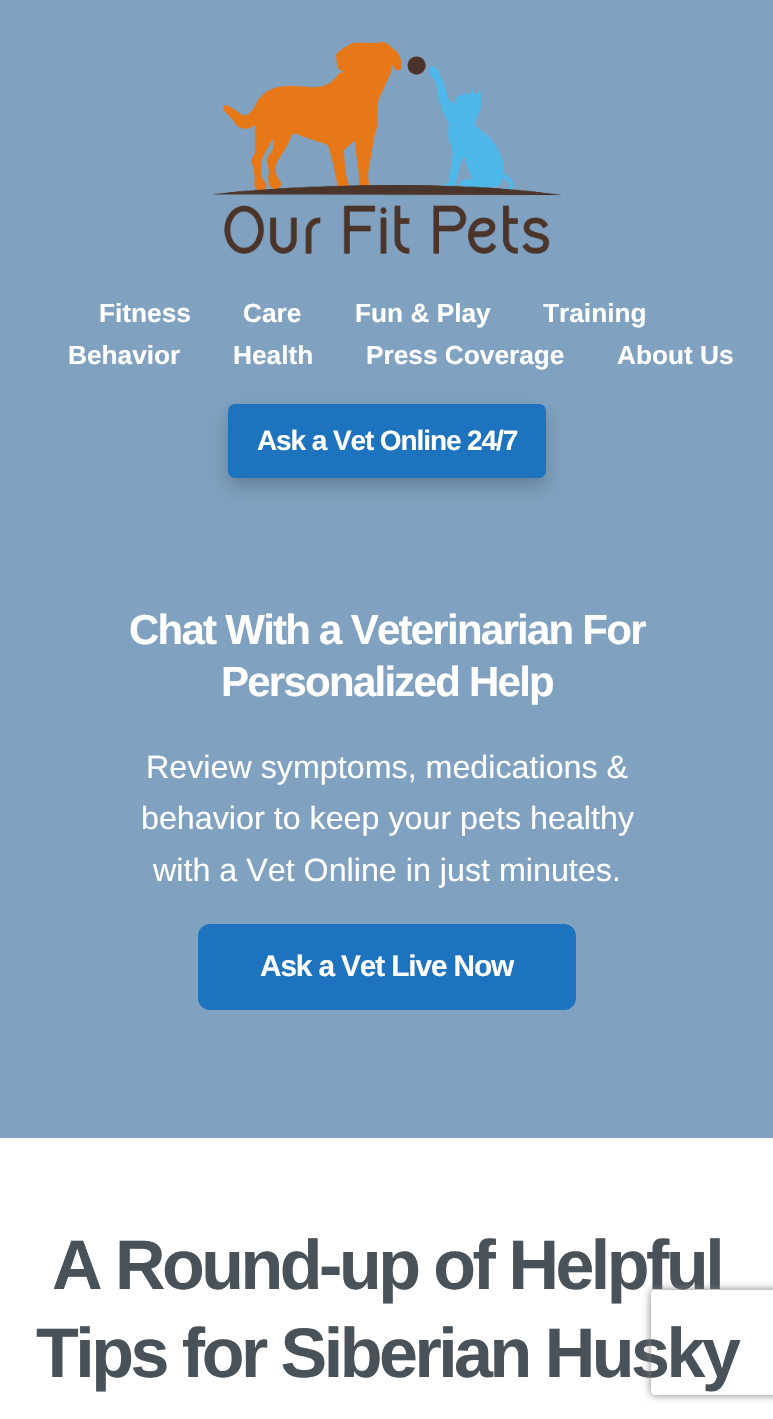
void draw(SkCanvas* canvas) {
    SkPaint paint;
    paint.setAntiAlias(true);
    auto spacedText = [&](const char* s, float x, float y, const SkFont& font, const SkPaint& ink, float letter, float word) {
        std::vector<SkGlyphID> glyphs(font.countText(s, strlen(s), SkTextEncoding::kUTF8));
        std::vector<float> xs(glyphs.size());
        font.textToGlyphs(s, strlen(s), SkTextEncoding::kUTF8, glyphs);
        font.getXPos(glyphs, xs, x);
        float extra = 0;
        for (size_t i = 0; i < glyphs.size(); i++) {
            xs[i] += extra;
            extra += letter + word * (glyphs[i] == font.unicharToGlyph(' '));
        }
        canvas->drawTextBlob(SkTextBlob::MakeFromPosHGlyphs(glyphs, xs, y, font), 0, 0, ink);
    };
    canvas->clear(0xFFFFFFFF);
    paint.setColor(0xFF80A1BF);
    canvas->drawRect(SkRect::MakeXYWH(0, 0, 773, 1138), paint);
    canvas->drawImageRect(SkImages::DeferredFromEncodedData(SkData::MakeFromFileName("img1.png")), SkRect::MakeXYWH(212, 42, 350, 212), SkSamplingOptions());
    SkFont font1(fontMgr->matchFamilyStyle("Liberation Sans", SkFontStyle::Bold()), 26.25f);
    font1.setSubpixel(true);
    paint.setColor(0xFFFFFFFF);
    canvas->drawString("Fitness", 99, 322, font1, paint);
    canvas->drawString("Care", 243, 322, font1, paint);
    canvas->drawString("Fun & Play", 355, 322, font1, paint);
    canvas->drawString("Training", 543, 322, font1, paint);
    canvas->drawString("Behavior", 68, 364, font1, paint);
    canvas->drawString("Health", 233, 364, font1, paint);
    canvas->drawString("Press Coverage", 366, 364, font1, paint);
    canvas->drawString("About Us", 617, 364, font1, paint);
    paint.setColor(0x33000000);
    paint.setMaskFilter(SkMaskFilter::MakeBlur(kNormal_SkBlurStyle, 9));
    canvas->drawRoundRect(SkRect::MakeXYWH(228, 413, 318, 74), 7, 7, paint);
    paint.setMaskFilter(nullptr);
    paint.setColor(0xFF1E73BE);
    canvas->drawRoundRect(SkRect::MakeXYWH(228, 404, 318, 74), 7, 7, paint);
    SkFont font2(fontMgr->matchFamilyStyle("Liberation Sans", SkFontStyle::Bold()), 28);
    font2.setSubpixel(true);
    paint.setColor(0xFFFFFFFF);
    spacedText("Ask a Vet Online 24/7", 257, 450, font2, paint, -1.1f, 0);
    SkFont font3(fontMgr->matchFamilyStyle("Liberation Sans", SkFontStyle::Bold()), 42);
    font3.setSubpixel(true);
    spacedText("Chat With a Veterinarian For", 129, 644, font3, paint, -1.75f, 0);
    spacedText("Personalized Help", 221, 696, font3, paint, -1.75f, 0);
    SkFont font4(fontMgr->matchFamilyStyle("Liberation Sans", SkFontStyle::Normal()), 32.25f);
    font4.setSubpixel(true);
    canvas->drawString("Review symptoms, medications &", 146, 778, font4, paint);
    canvas->drawString("behavior to keep your pets healthy", 141, 829, font4, paint);
    canvas->drawString("with a Vet Online in just minutes.", 153, 881, font4, paint);
    paint.setColor(0xFF1E73BE);
    canvas->drawRoundRect(SkRect::MakeXYWH(198, 924, 378, 86), 12, 12, paint);
    SkFont font5(fontMgr->matchFamilyStyle("Liberation Sans", SkFontStyle::Bold()), 29.75f);
    font5.setSubpixel(true);
    paint.setColor(0xFFFFFFFF);
    spacedText("Ask a Vet Live Now", 260, 976, font5, paint, -1.1f, 0);
    SkFont font6(fontMgr->matchFamilyStyle("Liberation Sans", SkFontStyle::Bold()), 70);
    font6.setSubpixel(true);
    paint.setColor(0xFF495259);
    spacedText("A Round-up of Helpful", 52, 1289, font6, paint, -3.5f, 0);
    spacedText("Tips for Siberian Husky", 36, 1377, font6, paint, -3.5f, 0);
    canvas->save();
    canvas->clipPath(SkPathBuilder(SkPathFillType::kEvenOdd).moveTo(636, 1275).lineTo(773, 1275).lineTo(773, 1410).lineTo(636, 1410).close().moveTo(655, 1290).lineTo(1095, 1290).cubicTo(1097, 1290, 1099, 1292, 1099, 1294).lineTo(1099, 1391).cubicTo(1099, 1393, 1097, 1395, 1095, 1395).lineTo(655, 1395).cubicTo(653, 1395, 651, 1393, 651, 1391).lineTo(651, 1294).cubicTo(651, 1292, 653, 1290, 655, 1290).close().detach(), true);
    paint.setColor(0xFF808080);
    paint.setMaskFilter(SkMaskFilter::MakeBlur(kNormal_SkBlurStyle, 4.5f));
    canvas->drawRoundRect(SkRect::MakeXYWH(651, 1290, 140, 105), 4, 4, paint);
    paint.setMaskFilter(nullptr);
    canvas->restore();
}
